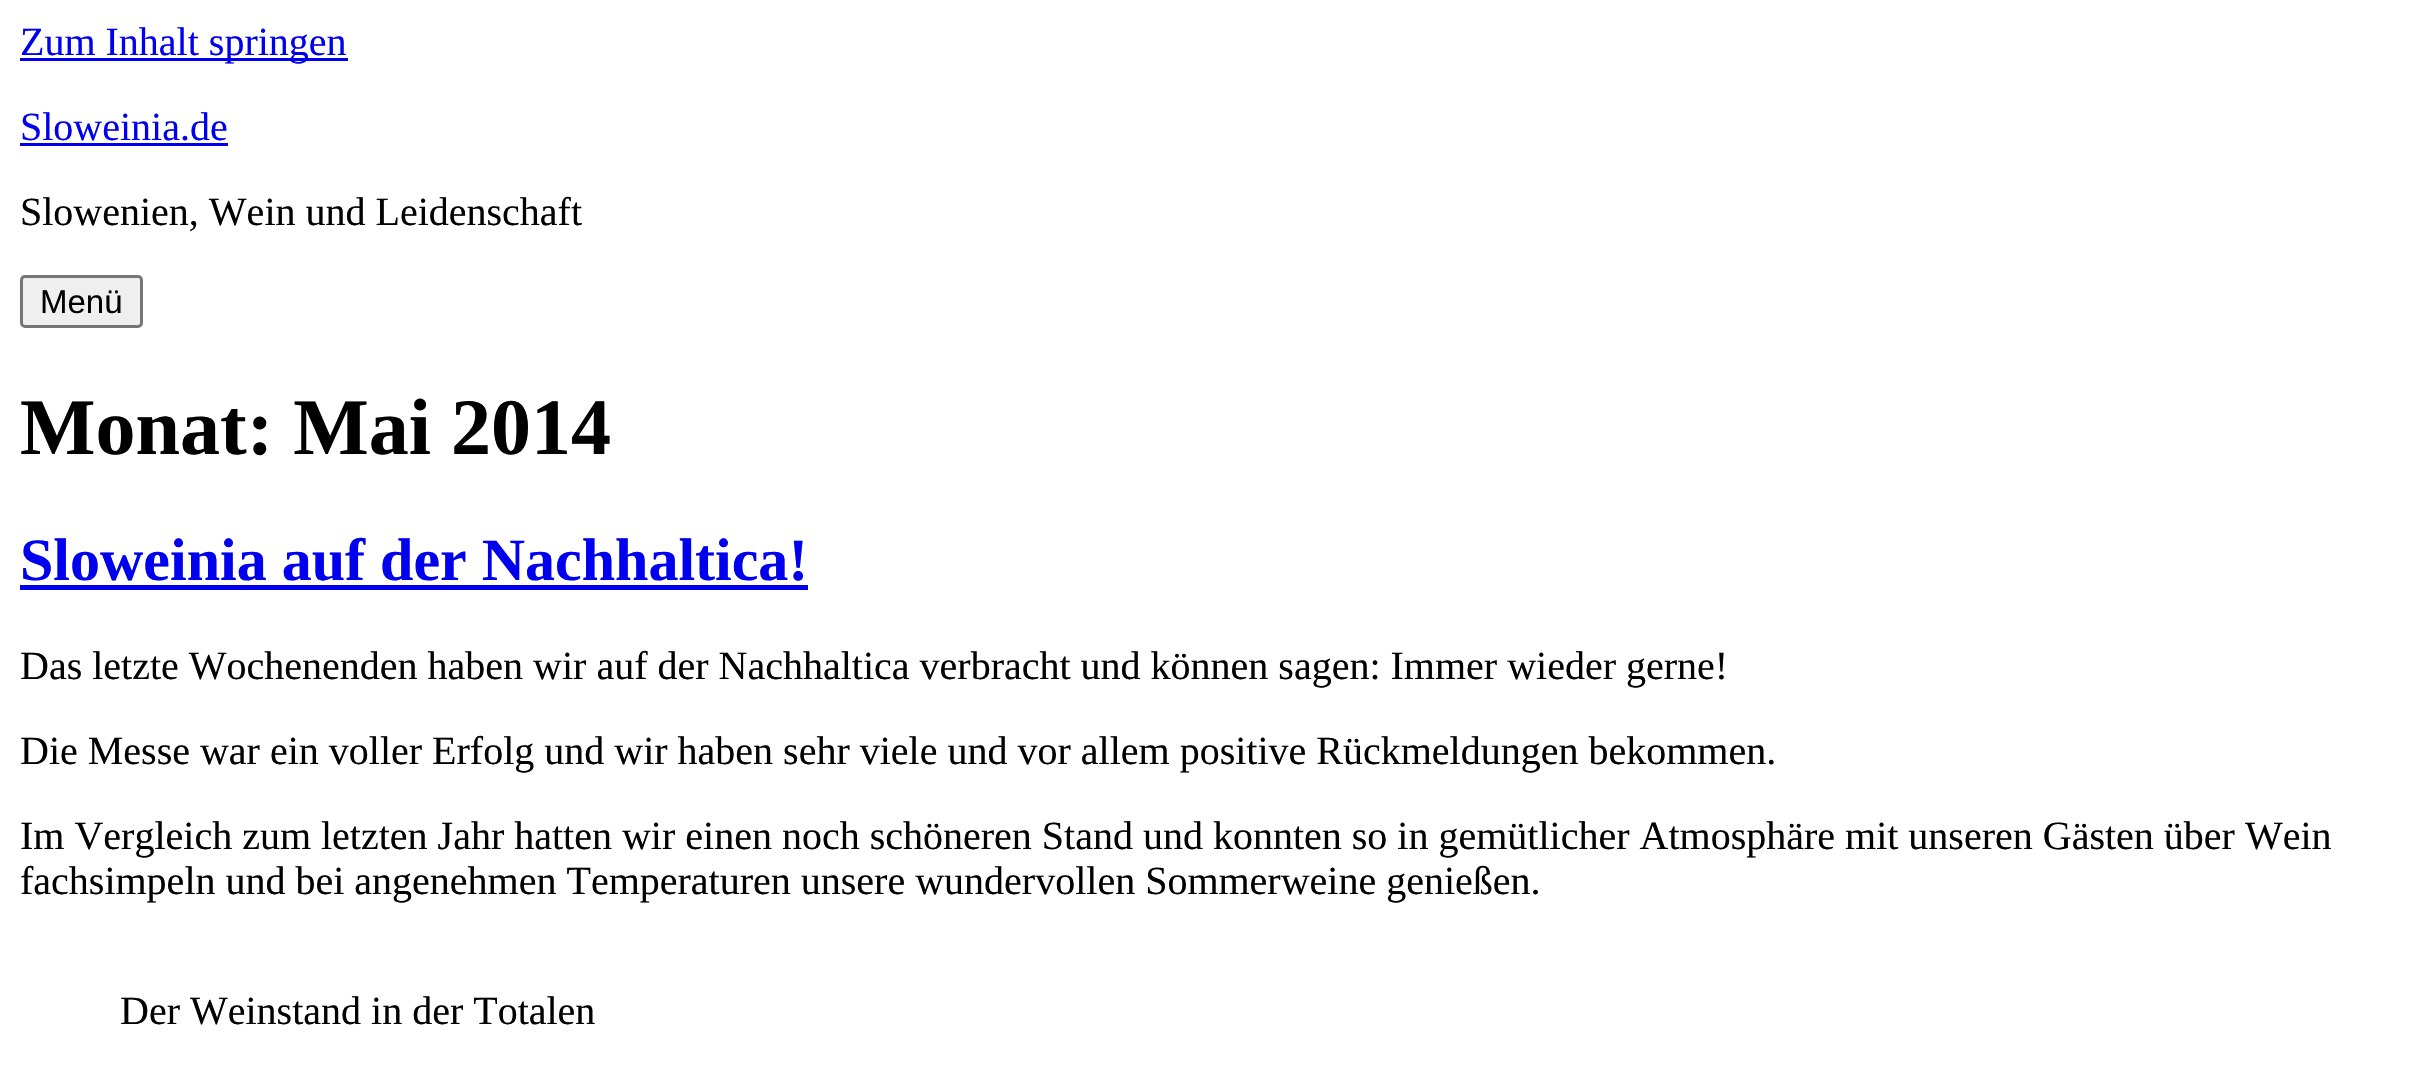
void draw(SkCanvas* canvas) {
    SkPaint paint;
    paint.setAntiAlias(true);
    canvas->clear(0xFFFFFFFF);
    paint.setColor(0xFF0000EE);
    canvas->drawRect(SkRect::MakeXYWH(20, 58, 328, 3), paint);
    SkFont font1(fontMgr->matchFamilyStyle("Liberation Serif", SkFontStyle::Normal()), 40);
    font1.setSubpixel(true);
    canvas->drawString("Zum Inhalt springen", 20, 55, font1, paint);
    canvas->drawString("Sloweinia.de", 20, 140, font1, paint);
    canvas->drawRect(SkRect::MakeXYWH(20, 143, 208, 3), paint);
    paint.setColor(0xFF000000);
    canvas->drawString("Slowenien, Wein und Leidenschaft", 20, 225, font1, paint);
    paint.setColor(0xFFEFEFEF);
    canvas->drawRoundRect(SkRect::MakeXYWH(21.5f, 276.5f, 120, 50), 3.5f, 3.5f, paint);
    paint.setStyle(SkPaint::kStroke_Style);
    paint.setStrokeWidth(3);
    paint.setColor(0xFF767676);
    canvas->drawRoundRect(SkRect::MakeXYWH(21.5f, 276.5f, 120, 50), 3.5f, 3.5f, paint);
    SkFont font2(fontMgr->matchFamilyStyle("Liberation Sans", SkFontStyle::Normal()), 33);
    font2.setSubpixel(true);
    paint.setStyle(SkPaint::kFill_Style);
    paint.setColor(0xFF000000);
    canvas->drawString("Menü", 40, 313, font2, paint);
    SkFont font3(fontMgr->matchFamilyStyle("Liberation Serif", SkFontStyle::Bold()), 80);
    font3.setSubpixel(true);
    canvas->drawString("Monat: Mai 2014", 20, 454, font3, paint);
    SkFont font4(fontMgr->matchFamilyStyle("Liberation Serif", SkFontStyle::Bold()), 60);
    font4.setSubpixel(true);
    paint.setColor(0xFF0000EE);
    canvas->drawString("Sloweinia auf der Nachhaltica!", 20, 580, font4, paint);
    canvas->drawRect(SkRect::MakeXYWH(20, 585, 788, 5), paint);
    paint.setColor(0xFF000000);
    canvas->drawString("Das letzte Wochenenden haben wir auf der Nachhaltica verbracht und können sagen: Immer wieder gerne!", 20, 679, font1, paint);
    canvas->drawString("Die Messe war ein voller Erfolg und wir haben sehr viele und vor allem positive Rückmeldungen bekommen.", 20, 764, font1, paint);
    canvas->drawString("Im Vergleich zum letzten Jahr hatten wir einen noch schöneren Stand und konnten so in gemütlicher Atmosphäre mit unseren Gästen über Wein", 20, 849, font1, paint);
    canvas->drawString("fachsimpeln und bei angenehmen Temperaturen unsere wundervollen Sommerweine genießen.", 20, 894, font1, paint);
    canvas->drawString("Der Weinstand in der Totalen", 120, 1024, font1, paint);
}
